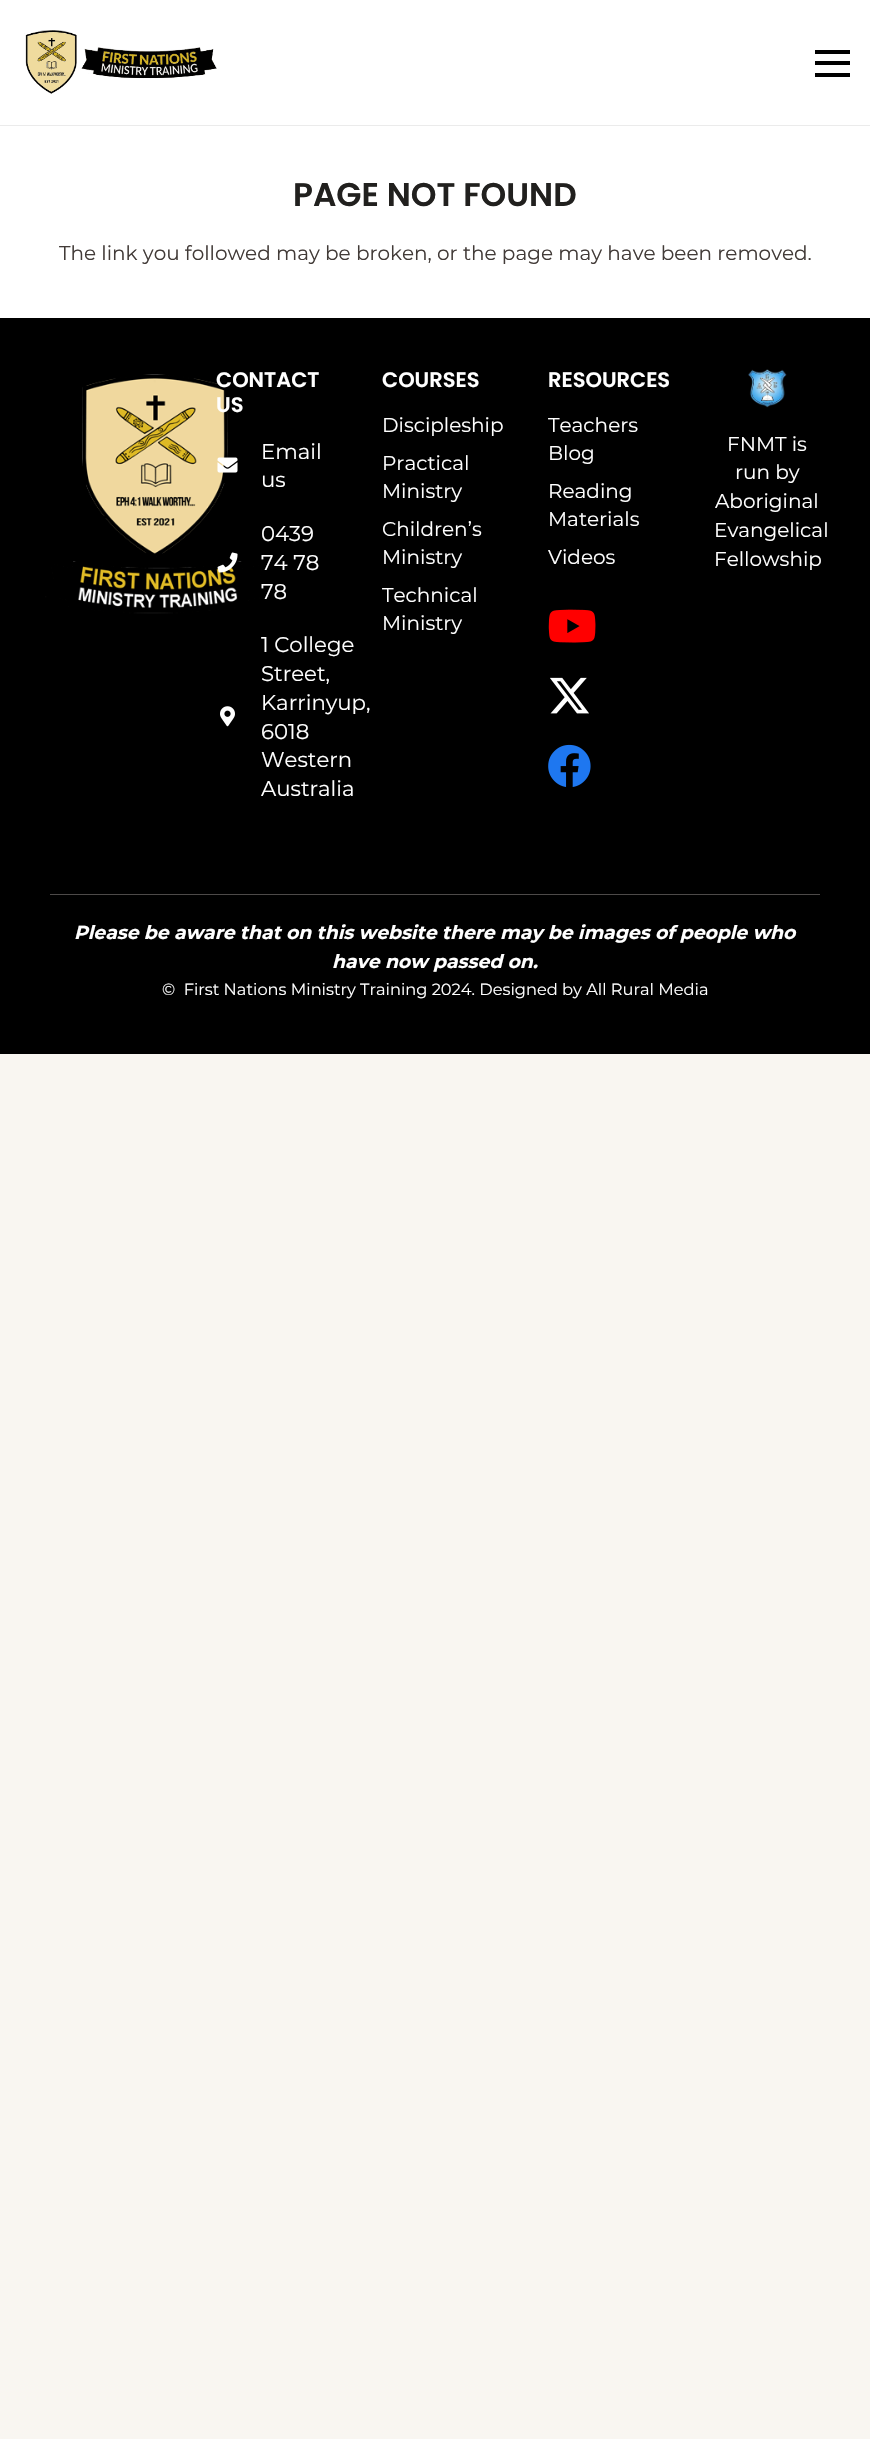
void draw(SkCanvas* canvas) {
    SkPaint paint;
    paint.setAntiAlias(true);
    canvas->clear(0xFFF9F6F1);
    paint.setColor(0xFFFFFFFF);
    canvas->drawRect(SkRect::MakeXYWH(0, 0, 870, 318), paint);
    paint.setColor(0xFFEBEBEB);
    canvas->drawRect(SkRect::MakeXYWH(0, 125, 870, 1), paint);
    canvas->drawImageRect(SkImages::DeferredFromEncodedData(SkData::MakeFromFileName("img1.png")), SkRect::MakeXYWH(24, 30, 193, 64), SkSamplingOptions());
    paint.setColor(0xFF000000);
    canvas->drawRect(SkRect::MakeXYWH(815, 61, 35, 4), paint);
    canvas->drawRect(SkRect::MakeXYWH(815, 50, 35, 4), paint);
    canvas->drawRect(SkRect::MakeXYWH(815, 73, 35, 4), paint);
    SkFont font1(fontMgr->matchFamilyStyle("Poppins", SkFontStyle(600, SkFontStyle::kNormal_Width, SkFontStyle::kUpright_Slant)), 32.75f);
    font1.setSubpixel(true);
    paint.setColor(0xFF21201E);
    canvas->drawString("PAGE NOT FOUND", 293, 206, font1, paint);
    SkFont font2(fontMgr->matchFamilyStyle("Montserrat", SkFontStyle::Normal()), 20);
    font2.setSubpixel(true);
    paint.setColor(0xFF423B38);
    canvas->drawString("The link you followed may be broken, or the page may have been removed.", 59, 260, font2, paint);
    paint.setColor(0xFF000000);
    canvas->drawRect(SkRect::MakeXYWH(0, 318, 870, 736), paint);
    canvas->drawImageRect(SkImages::DeferredFromEncodedData(SkData::MakeFromFileName("img2.png")), SkRect::MakeXYWH(45, 374, 224, 240), SkSamplingOptions());
    SkFont font3(fontMgr->matchFamilyStyle("Poppins", SkFontStyle(600, SkFontStyle::kNormal_Width, SkFontStyle::kUpright_Slant)), 21);
    font3.setSubpixel(true);
    paint.setColor(0xFFFFFFFF);
    canvas->drawString("CONTACT", 216, 387, font3, paint);
    canvas->drawString("US", 216, 412, font3, paint);
    canvas->drawImageRect(SkImages::DeferredFromEncodedData(SkData::MakeFromFileName("img3.png")), SkRect::MakeXYWH(217, 457, 21, 16), SkSamplingOptions());
    SkFont font4(fontMgr->matchFamilyStyle("Montserrat", SkFontStyle::Normal()), 21.25f);
    font4.setSubpixel(true);
    canvas->drawString("Email", 261, 459, font4, paint);
    canvas->drawString("us", 261, 487, font4, paint);
    canvas->drawImageRect(SkImages::DeferredFromEncodedData(SkData::MakeFromFileName("img4.png")), SkRect::MakeXYWH(217, 552, 21, 21), SkSamplingOptions());
    canvas->drawString("0439", 261, 541, font4, paint);
    canvas->drawString("74 78", 261, 570, font4, paint);
    canvas->drawString("78", 261, 599, font4, paint);
    canvas->drawImageRect(SkImages::DeferredFromEncodedData(SkData::MakeFromFileName("img5.png")), SkRect::MakeXYWH(220, 706, 15, 21), SkSamplingOptions());
    canvas->drawString("1 College", 261, 652, font4, paint);
    canvas->drawString("Street,", 261, 681, font4, paint);
    canvas->drawString("Karrinyup,", 261, 710, font4, paint);
    canvas->drawString("6018", 261, 739, font4, paint);
    canvas->drawString("Western", 261, 767, font4, paint);
    canvas->drawString("Australia", 261, 796, font4, paint);
    canvas->drawString("COURSES", 382, 387, font3, paint);
    canvas->drawString("Discipleship", 382, 432, font2, paint);
    canvas->drawString("Practical", 382, 470, font2, paint);
    canvas->drawString("Ministry", 382, 498, font2, paint);
    canvas->drawString("Children’s", 382, 536, font2, paint);
    canvas->drawString("Ministry", 382, 564, font2, paint);
    canvas->drawString("Technical", 382, 602, font2, paint);
    canvas->drawString("Ministry", 382, 630, font2, paint);
    canvas->drawString("RESOURCES", 548, 387, font3, paint);
    canvas->drawString("Teachers", 548, 432, font2, paint);
    canvas->drawString("Blog", 548, 460, font2, paint);
    canvas->drawString("Reading", 548, 498, font2, paint);
    canvas->drawString("Materials", 548, 526, font2, paint);
    canvas->drawString("Videos", 548, 564, font2, paint);
    canvas->drawImageRect(SkImages::DeferredFromEncodedData(SkData::MakeFromFileName("img6.png")), SkRect::MakeXYWH(548, 609, 48, 34), SkSamplingOptions());
    canvas->drawImageRect(SkImages::DeferredFromEncodedData(SkData::MakeFromFileName("img7.png")), SkRect::MakeXYWH(550, 677, 39, 37), SkSamplingOptions());
    canvas->drawImageRect(SkImages::DeferredFromEncodedData(SkData::MakeFromFileName("img8.png")), SkRect::MakeXYWH(548, 744, 43, 43), SkSamplingOptions());
    canvas->drawImageRect(SkImages::DeferredFromEncodedData(SkData::MakeFromFileName("img9.png")), SkRect::MakeXYWH(748, 369, 39, 39), SkSamplingOptions());
    canvas->drawString("FNMT is", 727, 451, font2, paint);
    canvas->drawString("run by", 735, 479, font2, paint);
    canvas->drawString("Aboriginal", 715, 508, font2, paint);
    canvas->drawString("Evangelical", 714, 537, font2, paint);
    canvas->drawString("Fellowship", 714, 566, font2, paint);
    paint.setColor(0xFF4D4A49);
    canvas->drawRect(SkRect::MakeXYWH(50, 894, 770, 1), paint);
    SkFont font5(fontMgr->matchFamilyStyle("Montserrat", SkFontStyle::BoldItalic()), 18.75f);
    font5.setSubpixel(true);
    paint.setColor(0xFFFFFFFF);
    canvas->drawString("Please be aware that on this website there may be images of people who", 74, 939, font5, paint);
    canvas->drawString("have now passed on.", 332, 968, font5, paint);
    SkFont font6(fontMgr->matchFamilyStyle("Montserrat", SkFontStyle::Normal()), 16.25f);
    font6.setSubpixel(true);
    canvas->drawString("©  First Nations Ministry Training 2024. Designed by All Rural Media", 162, 995, font6, paint);
}
